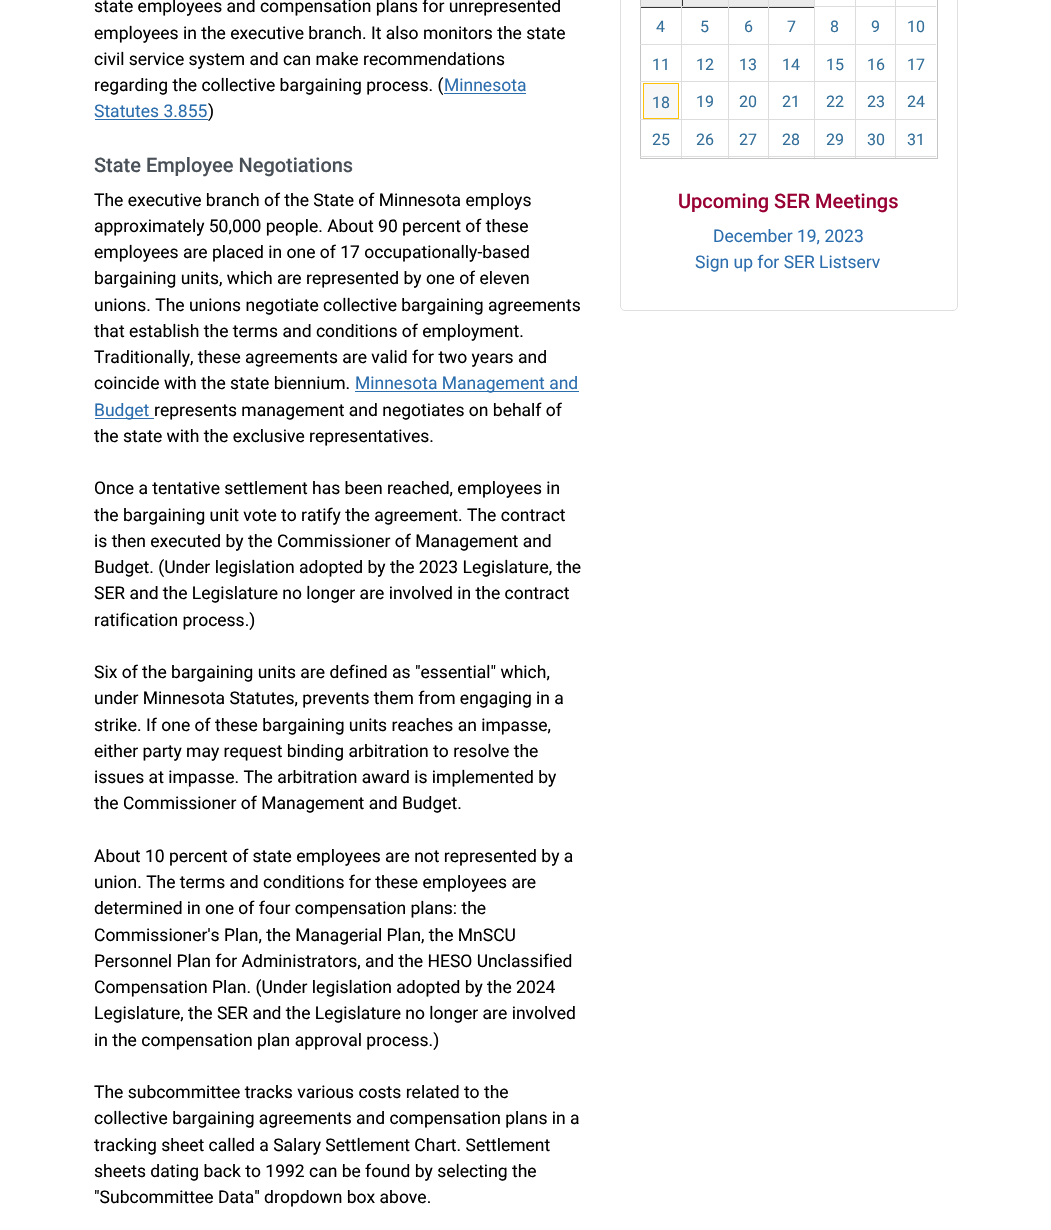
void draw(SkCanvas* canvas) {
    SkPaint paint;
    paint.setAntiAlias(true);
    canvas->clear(0xFFFFFFFF);
    SkFont font1(fontMgr->matchFamilyStyle("Roboto", SkFontStyle::Normal()), 17.5f);
    font1.setSubpixel(true);
    paint.setColor(0xFF000000);
    canvas->drawString("state employees and compensation plans for unrepresented", 94, 12, font1, paint);
    canvas->drawString("employees in the executive branch. It also monitors the state", 94, 39, font1, paint);
    canvas->drawString("civil service system and can make recommendations", 94, 65, font1, paint);
    canvas->drawString("regarding the collective bargaining process. (", 94, 91, font1, paint);
    paint.setColor(0xFF2B6DAD);
    canvas->drawString("Minnesota", 444, 91, font1, paint);
    canvas->drawRect(SkRect::MakeXYWH(444, 93, 82, 1), paint);
    canvas->drawString("Statutes 3.855", 94, 117, font1, paint);
    canvas->drawRect(SkRect::MakeXYWH(95, 119, 113, 1), paint);
    paint.setColor(0xFF000000);
    canvas->drawString(")", 208, 117, font1, paint);
    SkFont font2(fontMgr->matchFamilyStyle("Roboto", SkFontStyle(500, SkFontStyle::kNormal_Width, SkFontStyle::kUpright_Slant)), 20);
    font2.setSubpixel(true);
    paint.setColor(0xFF495057);
    canvas->drawString("State Employee Negotiations", 94, 172, font2, paint);
    paint.setColor(0xFF000000);
    canvas->drawString("The executive branch of the State of Minnesota employs", 94, 206, font1, paint);
    canvas->drawString("approximately 50,000 people. About 90 percent of these", 94, 232, font1, paint);
    canvas->drawString("employees are placed in one of 17 occupationally-based", 94, 258, font1, paint);
    canvas->drawString("bargaining units, which are represented by one of eleven", 94, 284, font1, paint);
    canvas->drawString("unions. The unions negotiate collective bargaining agreements", 94, 311, font1, paint);
    canvas->drawString("that establish the terms and conditions of employment.", 94, 337, font1, paint);
    canvas->drawString("Traditionally, these agreements are valid for two years and", 94, 363, font1, paint);
    canvas->drawString("coincide with the state biennium.", 94, 389, font1, paint);
    paint.setColor(0xFF2B6DAD);
    canvas->drawRect(SkRect::MakeXYWH(355, 391, 224, 1), paint);
    canvas->drawString("Minnesota Management and", 355, 389, font1, paint);
    canvas->drawRect(SkRect::MakeXYWH(95, 418, 59, 1), paint);
    canvas->drawString("Budget", 94, 416, font1, paint);
    paint.setColor(0xFF000000);
    canvas->drawString("represents management and negotiates on behalf of", 154, 416, font1, paint);
    canvas->drawString("the state with the exclusive representatives.", 94, 442, font1, paint);
    canvas->drawString("Once a tentative settlement has been reached, employees in", 94, 494, font1, paint);
    canvas->drawString("the bargaining unit vote to ratify the agreement. The contract", 94, 521, font1, paint);
    canvas->drawString("is then executed by the Commissioner of Management and", 94, 547, font1, paint);
    canvas->drawString("Budget. (Under legislation adopted by the 2023 Legislature, the", 94, 573, font1, paint);
    canvas->drawString("SER and the Legislature no longer are involved in the contract", 94, 599, font1, paint);
    canvas->drawString("ratification process.)", 94, 626, font1, paint);
    canvas->drawString("Six of the bargaining units are defined as \"essential\" which,", 94, 678, font1, paint);
    canvas->drawString("under Minnesota Statutes, prevents them from engaging in a", 94, 704, font1, paint);
    canvas->drawString("strike. If one of these bargaining units reaches an impasse,", 94, 731, font1, paint);
    canvas->drawString("either party may request binding arbitration to resolve the", 94, 757, font1, paint);
    canvas->drawString("issues at impasse. The arbitration award is implemented by", 94, 783, font1, paint);
    canvas->drawString("the Commissioner of Management and Budget.", 94, 809, font1, paint);
    canvas->drawString("About 10 percent of state employees are not represented by a", 94, 862, font1, paint);
    canvas->drawString("union. The terms and conditions for these employees are", 94, 888, font1, paint);
    canvas->drawString("determined in one of four compensation plans: the", 94, 914, font1, paint);
    canvas->drawString("Commissioner's Plan, the Managerial Plan, the MnSCU", 94, 941, font1, paint);
    canvas->drawString("Personnel Plan for Administrators, and the HESO Unclassified", 94, 967, font1, paint);
    canvas->drawString("Compensation Plan. (Under legislation adopted by the 2024", 94, 993, font1, paint);
    canvas->drawString("Legislature, the SER and the Legislature no longer are involved", 94, 1019, font1, paint);
    canvas->drawString("in the compensation plan approval process.)", 94, 1046, font1, paint);
    canvas->drawString("The subcommittee tracks various costs related to the", 94, 1098, font1, paint);
    canvas->drawString("collective bargaining agreements and compensation plans in a", 94, 1124, font1, paint);
    canvas->drawString("tracking sheet called a Salary Settlement Chart. Settlement", 94, 1151, font1, paint);
    canvas->drawString("sheets dating back to 1992 can be found by selecting the", 94, 1177, font1, paint);
    canvas->drawString("\"Subcommittee Data\" dropdown box above.", 94, 1203, font1, paint);
    paint.setStyle(SkPaint::kStroke_Style);
    paint.setStrokeWidth(1);
    paint.setColor(0xFFDFDFDF);
    canvas->drawRoundRect(SkRect::MakeXYWH(620.5f, -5.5f, 337, 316), 4.5f, 4.5f, paint);
    paint.setColor(0xFFC5C5C5);
    canvas->drawRect(SkRect::MakeXYWH(640.5f, -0.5f, 297, 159), paint);
    paint.setStyle(SkPaint::kFill_Style);
    paint.setColor(0xFF333333);
    canvas->drawRect(SkRect::MakeXYWH(681, 0, 47, 8), paint);
    paint.setColor(0xFFDDDDDD);
    canvas->drawRect(SkRect::MakeXYWH(640, 6, 296, 1), paint);
    paint.setColor(0xFF333333);
    canvas->drawRect(SkRect::MakeXYWH(641, 7, 40, 1), paint);
    paint.setColor(0xFFEBEBEB);
    canvas->drawRect(SkRect::MakeXYWH(641, 0, 40, 6), paint);
    canvas->drawRect(SkRect::MakeXYWH(683, 0, 45, 6), paint);
    paint.setColor(0xFF333333);
    canvas->drawRect(SkRect::MakeXYWH(728, 7, 86, 1), paint);
    paint.setColor(0xFFEBEBEB);
    canvas->drawRect(SkRect::MakeXYWH(729, 0, 39, 6), paint);
    canvas->drawRect(SkRect::MakeXYWH(769, 0, 45, 6), paint);
    paint.setColor(0xFFDDDDDD);
    canvas->drawRect(SkRect::MakeXYWH(640, 44, 296, 1), paint);
    SkFont font3(fontMgr->matchFamilyStyle("Roboto", SkFontStyle::Normal()), 16);
    font3.setSubpixel(true);
    paint.setColor(0xFF346F9A);
    canvas->drawString("4", 656, 32, font3, paint);
    canvas->drawString("5", 700, 32, font3, paint);
    canvas->drawString("6", 744, 32, font3, paint);
    canvas->drawString("7", 787, 32, font3, paint);
    canvas->drawString("8", 830, 32, font3, paint);
    canvas->drawString("9", 871, 32, font3, paint);
    canvas->drawString("10", 907, 32, font3, paint);
    paint.setColor(0xFFDDDDDD);
    canvas->drawRect(SkRect::MakeXYWH(640, 81, 296, 1), paint);
    paint.setColor(0xFF346F9A);
    canvas->drawString("11", 652, 70, font3, paint);
    canvas->drawString("12", 696, 70, font3, paint);
    canvas->drawString("13", 739, 70, font3, paint);
    canvas->drawString("14", 782, 70, font3, paint);
    canvas->drawString("15", 826, 70, font3, paint);
    canvas->drawString("16", 867, 70, font3, paint);
    canvas->drawString("17", 907, 70, font3, paint);
    paint.setColor(0xFFF7F7F7);
    canvas->drawRect(SkRect::MakeXYWH(643.5f, 83.5f, 35, 35), paint);
    paint.setStyle(SkPaint::kStroke_Style);
    paint.setColor(0xFFFFC107);
    canvas->drawRect(SkRect::MakeXYWH(643.5f, 83.5f, 35, 35), paint);
    paint.setStyle(SkPaint::kFill_Style);
    paint.setColor(0xFF346F9A);
    canvas->drawString("18", 652, 108, font3, paint);
    canvas->drawString("19", 696, 107, font3, paint);
    canvas->drawString("20", 739, 107, font3, paint);
    canvas->drawString("21", 782, 107, font3, paint);
    canvas->drawString("22", 826, 107, font3, paint);
    canvas->drawString("23", 867, 107, font3, paint);
    canvas->drawString("24", 907, 107, font3, paint);
    paint.setColor(0xFFDDDDDD);
    canvas->drawRect(SkRect::MakeXYWH(640, 119, 296, 1), paint);
    canvas->drawRect(SkRect::MakeXYWH(640, 156, 296, 1), paint);
    canvas->drawRect(SkRect::MakeXYWH(681, 0, 1, 158), paint);
    paint.setColor(0xFF346F9A);
    canvas->drawString("25", 652, 145, font3, paint);
    paint.setColor(0xFFDDDDDD);
    canvas->drawRect(SkRect::MakeXYWH(728, 0, 1, 158), paint);
    paint.setColor(0xFF346F9A);
    canvas->drawString("26", 696, 145, font3, paint);
    paint.setColor(0xFFDDDDDD);
    canvas->drawRect(SkRect::MakeXYWH(768, 0, 1, 158), paint);
    paint.setColor(0xFF346F9A);
    canvas->drawString("27", 739, 145, font3, paint);
    paint.setColor(0xFFDDDDDD);
    canvas->drawRect(SkRect::MakeXYWH(814, 0, 1, 158), paint);
    paint.setColor(0xFF346F9A);
    canvas->drawString("28", 782, 145, font3, paint);
    paint.setColor(0xFFDDDDDD);
    canvas->drawRect(SkRect::MakeXYWH(855, 0, 1, 158), paint);
    paint.setColor(0xFF346F9A);
    canvas->drawString("29", 826, 145, font3, paint);
    paint.setColor(0xFFDDDDDD);
    canvas->drawRect(SkRect::MakeXYWH(895, 0, 1, 158), paint);
    paint.setColor(0xFF346F9A);
    canvas->drawString("30", 867, 145, font3, paint);
    canvas->drawString("31", 907, 145, font3, paint);
    paint.setColor(0xFF990033);
    canvas->drawString("Upcoming SER Meetings", 678, 208, font2, paint);
    paint.setColor(0xFF2B6DAD);
    canvas->drawString("December 19, 2023", 713, 242, font1, paint);
    canvas->drawString("Sign up for SER Listserv", 695, 268, font1, paint);
}
